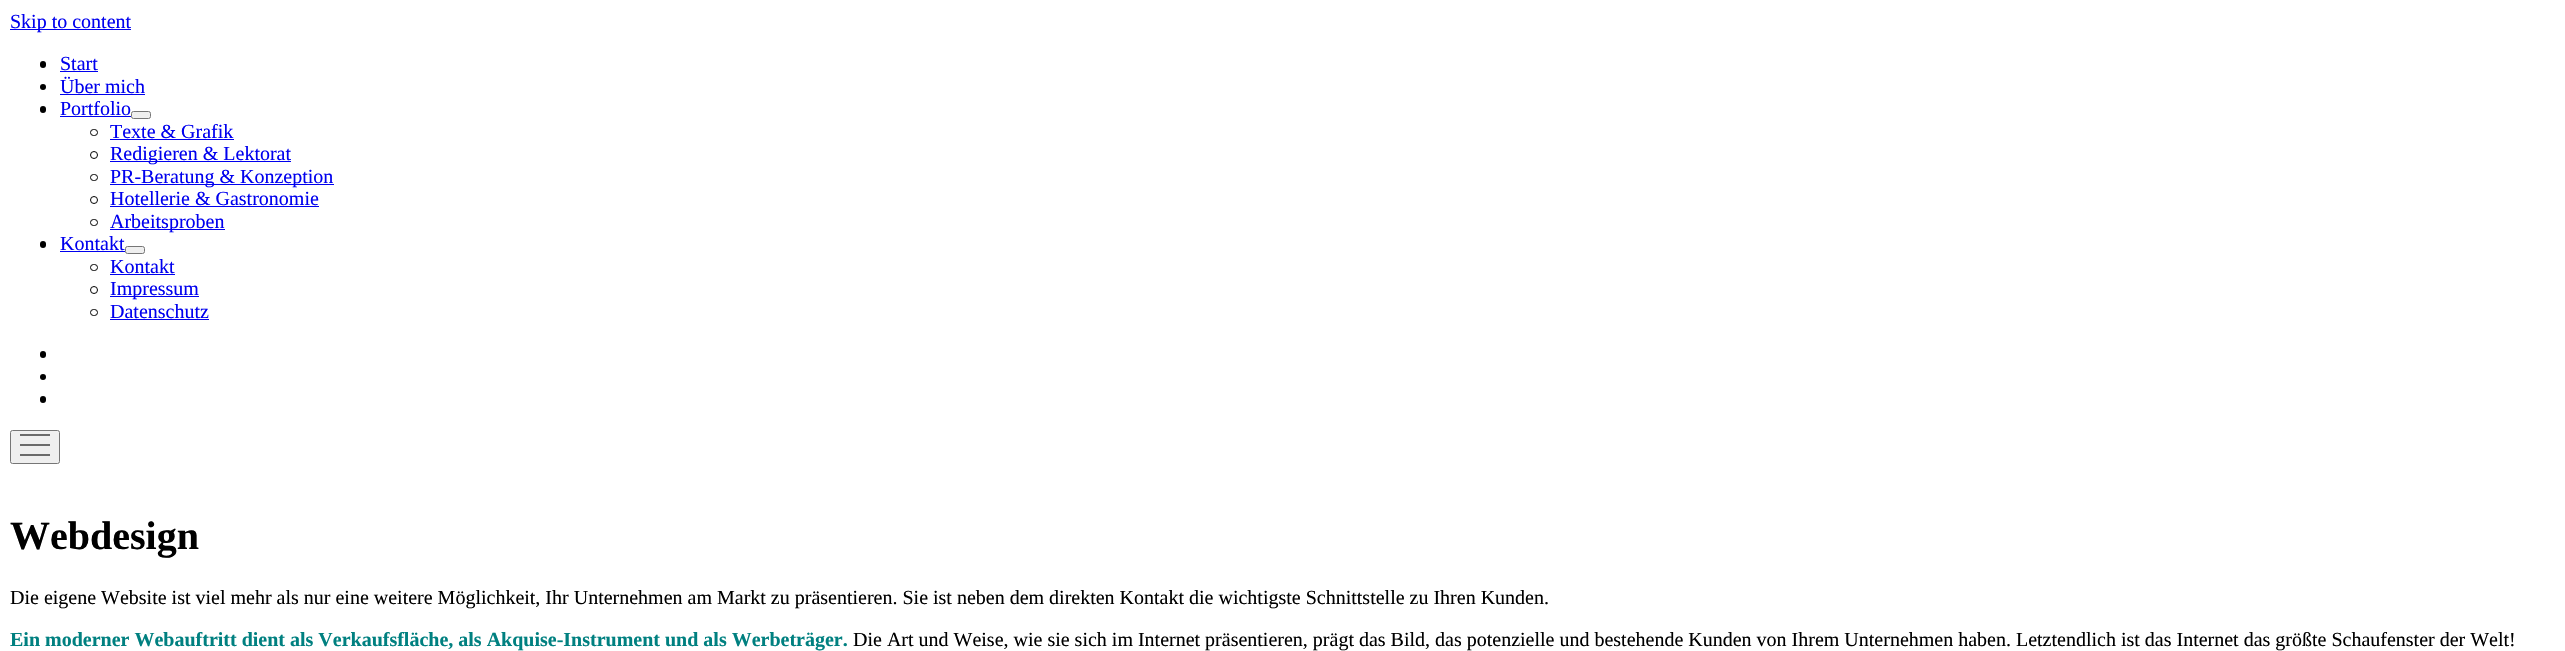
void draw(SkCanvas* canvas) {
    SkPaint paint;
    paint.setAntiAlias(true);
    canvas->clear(0xFFFFFFFF);
    paint.setColor(0xFF0000EE);
    canvas->drawRect(SkRect::MakeXYWH(10, 29, 121, 1), paint);
    SkFont font1(fontMgr->matchFamilyStyle("Liberation Serif", SkFontStyle::Normal()), 20);
    font1.setSubpixel(true);
    canvas->drawString("Skip to content", 10, 28, font1, paint);
    paint.setColor(0xFF000000);
    canvas->drawRoundRect(SkRect::MakeXYWH(40, 61, 6, 7), 3, 3, paint);
    paint.setColor(0xFF0000EE);
    canvas->drawString("Start", 60, 70, font1, paint);
    canvas->drawRect(SkRect::MakeXYWH(60, 71, 38, 1), paint);
    paint.setColor(0xFF000000);
    canvas->drawCircle(43, 87, 3, paint);
    paint.setColor(0xFF0000EE);
    canvas->drawString("Über mich", 60, 93, font1, paint);
    canvas->drawRect(SkRect::MakeXYWH(60, 94, 85, 1), paint);
    paint.setColor(0xFF000000);
    canvas->drawRoundRect(SkRect::MakeXYWH(40, 106, 6, 7), 3, 3, paint);
    paint.setColor(0xFF0000EE);
    canvas->drawString("Portfolio", 60, 115, font1, paint);
    canvas->drawRect(SkRect::MakeXYWH(60, 116, 71, 1), paint);
    paint.setColor(0xFFEFEFEF);
    canvas->drawRoundRect(SkRect::MakeXYWH(131.5f, 111.5f, 19, 7), 2, 2, paint);
    paint.setStyle(SkPaint::kStroke_Style);
    paint.setStrokeWidth(1);
    paint.setColor(0xFF767676);
    canvas->drawRoundRect(SkRect::MakeXYWH(131.5f, 111.5f, 19, 7), 2, 2, paint);
    paint.setColor(0xFF000000);
    canvas->drawRoundRect(SkRect::MakeXYWH(90.5f, 129.5f, 7, 6), 3, 3, paint);
    paint.setStyle(SkPaint::kFill_Style);
    paint.setColor(0xFF0000EE);
    canvas->drawString("Texte & Grafik", 110, 138, font1, paint);
    canvas->drawRect(SkRect::MakeXYWH(110, 139, 124, 1), paint);
    paint.setStyle(SkPaint::kStroke_Style);
    paint.setColor(0xFF000000);
    canvas->drawCircle(94, 155, 3.5f, paint);
    paint.setStyle(SkPaint::kFill_Style);
    paint.setColor(0xFF0000EE);
    canvas->drawRect(SkRect::MakeXYWH(110, 161, 181, 1), paint);
    canvas->drawString("Redigieren & Lektorat", 110, 160, font1, paint);
    paint.setStyle(SkPaint::kStroke_Style);
    paint.setColor(0xFF000000);
    canvas->drawRoundRect(SkRect::MakeXYWH(90.5f, 174.5f, 7, 6), 3, 3, paint);
    paint.setStyle(SkPaint::kFill_Style);
    paint.setColor(0xFF0000EE);
    canvas->drawRect(SkRect::MakeXYWH(110, 184, 224, 1), paint);
    canvas->drawString("PR-Beratung & Konzeption", 110, 183, font1, paint);
    paint.setStyle(SkPaint::kStroke_Style);
    paint.setColor(0xFF000000);
    canvas->drawCircle(94, 200, 3.5f, paint);
    paint.setStyle(SkPaint::kFill_Style);
    paint.setColor(0xFF0000EE);
    canvas->drawString("Hotellerie & Gastronomie", 110, 205, font1, paint);
    canvas->drawRect(SkRect::MakeXYWH(110, 206, 209, 1), paint);
    paint.setStyle(SkPaint::kStroke_Style);
    paint.setColor(0xFF000000);
    canvas->drawRoundRect(SkRect::MakeXYWH(90.5f, 219.5f, 7, 6), 3, 3, paint);
    paint.setStyle(SkPaint::kFill_Style);
    paint.setColor(0xFF0000EE);
    canvas->drawRect(SkRect::MakeXYWH(110, 229, 115, 1), paint);
    canvas->drawString("Arbeitsproben", 110, 228, font1, paint);
    paint.setColor(0xFF000000);
    canvas->drawRoundRect(SkRect::MakeXYWH(40, 241, 6, 7), 3, 3, paint);
    paint.setColor(0xFF0000EE);
    canvas->drawString("Kontakt", 60, 250, font1, paint);
    canvas->drawRect(SkRect::MakeXYWH(60, 251, 65, 1), paint);
    paint.setColor(0xFFEFEFEF);
    canvas->drawRoundRect(SkRect::MakeXYWH(125.5f, 246.5f, 19, 7), 2, 2, paint);
    paint.setStyle(SkPaint::kStroke_Style);
    paint.setColor(0xFF767676);
    canvas->drawRoundRect(SkRect::MakeXYWH(125.5f, 246.5f, 19, 7), 2, 2, paint);
    paint.setColor(0xFF000000);
    canvas->drawRoundRect(SkRect::MakeXYWH(90.5f, 264.5f, 7, 6), 3, 3, paint);
    paint.setStyle(SkPaint::kFill_Style);
    paint.setColor(0xFF0000EE);
    canvas->drawString("Kontakt", 110, 273, font1, paint);
    canvas->drawRect(SkRect::MakeXYWH(110, 274, 65, 1), paint);
    paint.setStyle(SkPaint::kStroke_Style);
    paint.setColor(0xFF000000);
    canvas->drawCircle(94, 290, 3.5f, paint);
    paint.setStyle(SkPaint::kFill_Style);
    paint.setColor(0xFF0000EE);
    canvas->drawRect(SkRect::MakeXYWH(110, 296, 89, 1), paint);
    canvas->drawString("Impressum", 110, 295, font1, paint);
    paint.setStyle(SkPaint::kStroke_Style);
    paint.setColor(0xFF000000);
    canvas->drawRoundRect(SkRect::MakeXYWH(90.5f, 309.5f, 7, 6), 3, 3, paint);
    paint.setStyle(SkPaint::kFill_Style);
    paint.setColor(0xFF0000EE);
    canvas->drawString("Datenschutz", 110, 318, font1, paint);
    canvas->drawRect(SkRect::MakeXYWH(110, 319, 99, 1), paint);
    paint.setColor(0xFF000000);
    canvas->drawRoundRect(SkRect::MakeXYWH(40, 351, 6, 7), 3, 3, paint);
    canvas->drawCircle(43, 377, 3, paint);
    canvas->drawRoundRect(SkRect::MakeXYWH(40, 396, 6, 7), 3, 3, paint);
    paint.setColor(0xFFEFEFEF);
    canvas->drawRoundRect(SkRect::MakeXYWH(10.5f, 430.5f, 49, 33), 2, 2, paint);
    paint.setStyle(SkPaint::kStroke_Style);
    paint.setColor(0xFF767676);
    canvas->drawRoundRect(SkRect::MakeXYWH(10.5f, 430.5f, 49, 33), 2, 2, paint);
    paint.setStyle(SkPaint::kFill_Style);
    paint.setColor(0xFF6B6B6B);
    canvas->drawRect(SkRect::MakeXYWH(20, 434, 30, 2), paint);
    canvas->drawRect(SkRect::MakeXYWH(20, 444, 30, 2), paint);
    canvas->drawRect(SkRect::MakeXYWH(20, 454, 30, 2), paint);
    SkFont font2(fontMgr->matchFamilyStyle("Liberation Serif", SkFontStyle::Bold()), 40);
    font2.setSubpixel(true);
    paint.setColor(0xFF000000);
    canvas->drawString("Webdesign", 10, 549, font2, paint);
    canvas->drawString("Die eigene Website ist viel mehr als nur eine weitere Möglichkeit, Ihr Unternehmen am Markt zu präsentieren. Sie ist neben dem direkten Kontakt die wichtigste Schnittstelle zu Ihren Kunden.", 10, 604, font1, paint);
    SkFont font3(fontMgr->matchFamilyStyle("Liberation Serif", SkFontStyle::Bold()), 20);
    font3.setSubpixel(true);
    paint.setColor(0xFF008080);
    canvas->drawString("Ein moderner Webauftritt dient als Verkaufsfläche, als Akquise-Instrument und als Werbeträger.", 10, 646, font3, paint);
    paint.setColor(0xFF000000);
    canvas->drawString("Die Art und Weise, wie sie sich im Internet präsentieren, prägt das Bild, das potenzielle und bestehende Kunden von Ihrem Unternehmen haben. Letztendlich ist das Internet das größte Schaufenster der Welt!", 853, 646, font1, paint);
}
